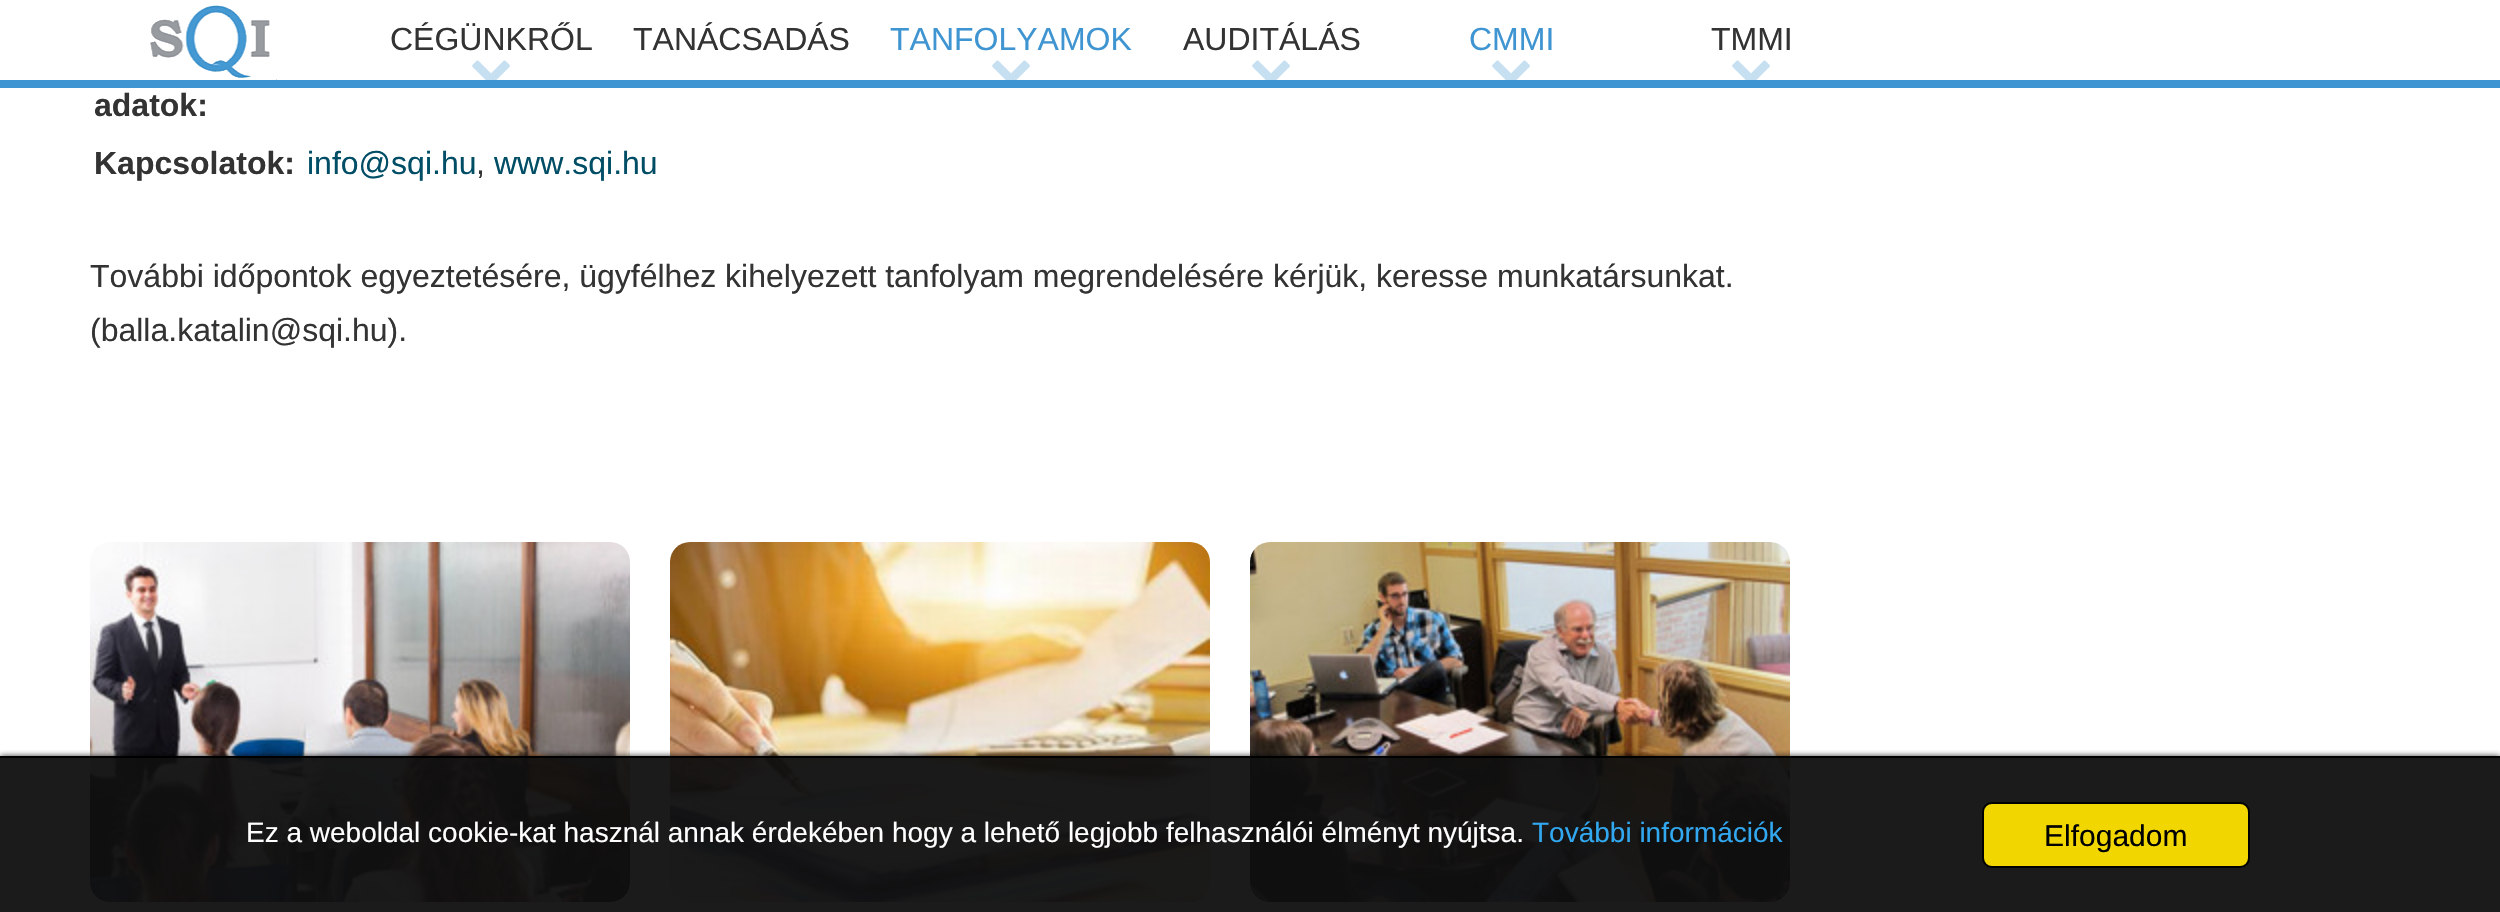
void draw(SkCanvas* canvas) {
    SkPaint paint;
    paint.setAntiAlias(true);
    canvas->clear(0xFFFFFFFF);
    paint.setColor(0xFF3F95D1);
    canvas->drawRect(SkRect::MakeXYWH(0, 80, 2500, 8), paint);
    canvas->drawImageRect(SkImages::DeferredFromEncodedData(SkData::MakeFromFileName("img1.png")), SkRect::MakeXYWH(150, 5, 127, 75), SkSamplingOptions());
    SkFont font1(fontMgr->matchFamilyStyle("Liberation Sans", SkFontStyle::Normal()), 32);
    font1.setSubpixel(true);
    paint.setColor(0xFF333333);
    canvas->drawString("CÉGÜNKRŐL", 390, 50, font1, paint);
    canvas->drawImageRect(SkImages::DeferredFromEncodedData(SkData::MakeFromFileName("img2.png")), SkRect::MakeXYWH(472, 60, 38, 20), SkSamplingOptions());
    canvas->drawString("TANÁCSADÁS", 633, 50, font1, paint);
    paint.setColor(0xFF3F95D1);
    canvas->drawString("TANFOLYAMOK", 890, 50, font1, paint);
    canvas->drawImageRect(SkImages::DeferredFromEncodedData(SkData::MakeFromFileName("img2.png")), SkRect::MakeXYWH(992, 60, 38, 20), SkSamplingOptions());
    paint.setColor(0xFF333333);
    canvas->drawString("AUDITÁLÁS", 1183, 50, font1, paint);
    canvas->drawImageRect(SkImages::DeferredFromEncodedData(SkData::MakeFromFileName("img2.png")), SkRect::MakeXYWH(1252, 60, 38, 20), SkSamplingOptions());
    paint.setColor(0xFF3F95D1);
    canvas->drawString("CMMI", 1469, 50, font1, paint);
    canvas->drawImageRect(SkImages::DeferredFromEncodedData(SkData::MakeFromFileName("img2.png")), SkRect::MakeXYWH(1492, 60, 38, 20), SkSamplingOptions());
    paint.setColor(0xFF333333);
    canvas->drawString("TMMI", 1711, 50, font1, paint);
    canvas->drawImageRect(SkImages::DeferredFromEncodedData(SkData::MakeFromFileName("img2.png")), SkRect::MakeXYWH(1732, 60, 38, 20), SkSamplingOptions());
    SkFont font2(fontMgr->matchFamilyStyle("Liberation Sans", SkFontStyle::Bold()), 32);
    font2.setSubpixel(true);
    canvas->drawString("adatok:", 94, 116, font2, paint);
    canvas->drawString("Kapcsolatok:", 94, 174, font2, paint);
    paint.setColor(0xFF004D66);
    canvas->drawString("info@sqi.hu", 307, 174, font1, paint);
    paint.setColor(0xFF333333);
    canvas->drawString(",", 476, 174, font1, paint);
    paint.setColor(0xFF004D66);
    canvas->drawString("www.sqi.hu", 494, 174, font1, paint);
    paint.setColor(0xFF333333);
    canvas->drawString("További időpontok egyeztetésére, ügyfélhez kihelyezett tanfolyam megrendelésére kérjük, keresse munkatársunkat.", 90, 287, font1, paint);
    canvas->drawString("(balla.katalin@sqi.hu).", 90, 341, font1, paint);
    canvas->drawImageRect(SkImages::DeferredFromEncodedData(SkData::MakeFromFileName("img3.png")), SkRect::MakeXYWH(90, 542, 540, 360), SkSamplingOptions());
    canvas->drawImageRect(SkImages::DeferredFromEncodedData(SkData::MakeFromFileName("img4.png")), SkRect::MakeXYWH(670, 542, 540, 360), SkSamplingOptions());
    canvas->drawImageRect(SkImages::DeferredFromEncodedData(SkData::MakeFromFileName("img5.png")), SkRect::MakeXYWH(1250, 542, 540, 360), SkSamplingOptions());
    canvas->save();
    canvas->clipRect(SkRect::MakeXYWH(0, 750, 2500, 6));
    paint.setColor(0xCC000000);
    paint.setMaskFilter(SkMaskFilter::MakeBlur(kNormal_SkBlurStyle, 3));
    canvas->drawRect(SkRect::MakeXYWH(0, 756, 2500, 156), paint);
    paint.setMaskFilter(nullptr);
    canvas->restore();
    paint.setColor(0xF20F0F0F);
    canvas->drawRect(SkRect::MakeXYWH(0, 758, 2500, 154), paint);
    paint.setColor(0xFF000000);
    canvas->drawRect(SkRect::MakeXYWH(0, 756, 2500, 2), paint);
    SkFont font3(fontMgr->matchFamilyStyle("Liberation Sans", SkFontStyle::Normal()), 28);
    font3.setSubpixel(true);
    paint.setColor(0xFFFFFFFF);
    canvas->drawString("Ez a weboldal cookie-kat használ annak érdekében hogy a lehető legjobb felhasználói élményt nyújtsa.", 246, 842, font3, paint);
    paint.setColor(0xFF31A8F0);
    canvas->drawString("További információk", 1532, 842, font3, paint);
    paint.setColor(0xFFF1D600);
    canvas->drawRoundRect(SkRect::MakeXYWH(1983, 803, 266, 64), 9, 9, paint);
    paint.setStyle(SkPaint::kStroke_Style);
    paint.setStrokeWidth(2);
    paint.setColor(0xFF000000);
    canvas->drawRoundRect(SkRect::MakeXYWH(1983, 803, 266, 64), 9, 9, paint);
    SkFont font4(fontMgr->matchFamilyStyle("Liberation Sans", SkFontStyle::Normal()), 30);
    font4.setSubpixel(true);
    paint.setStyle(SkPaint::kFill_Style);
    canvas->drawString("Elfogadom", 2044, 846, font4, paint);
}
